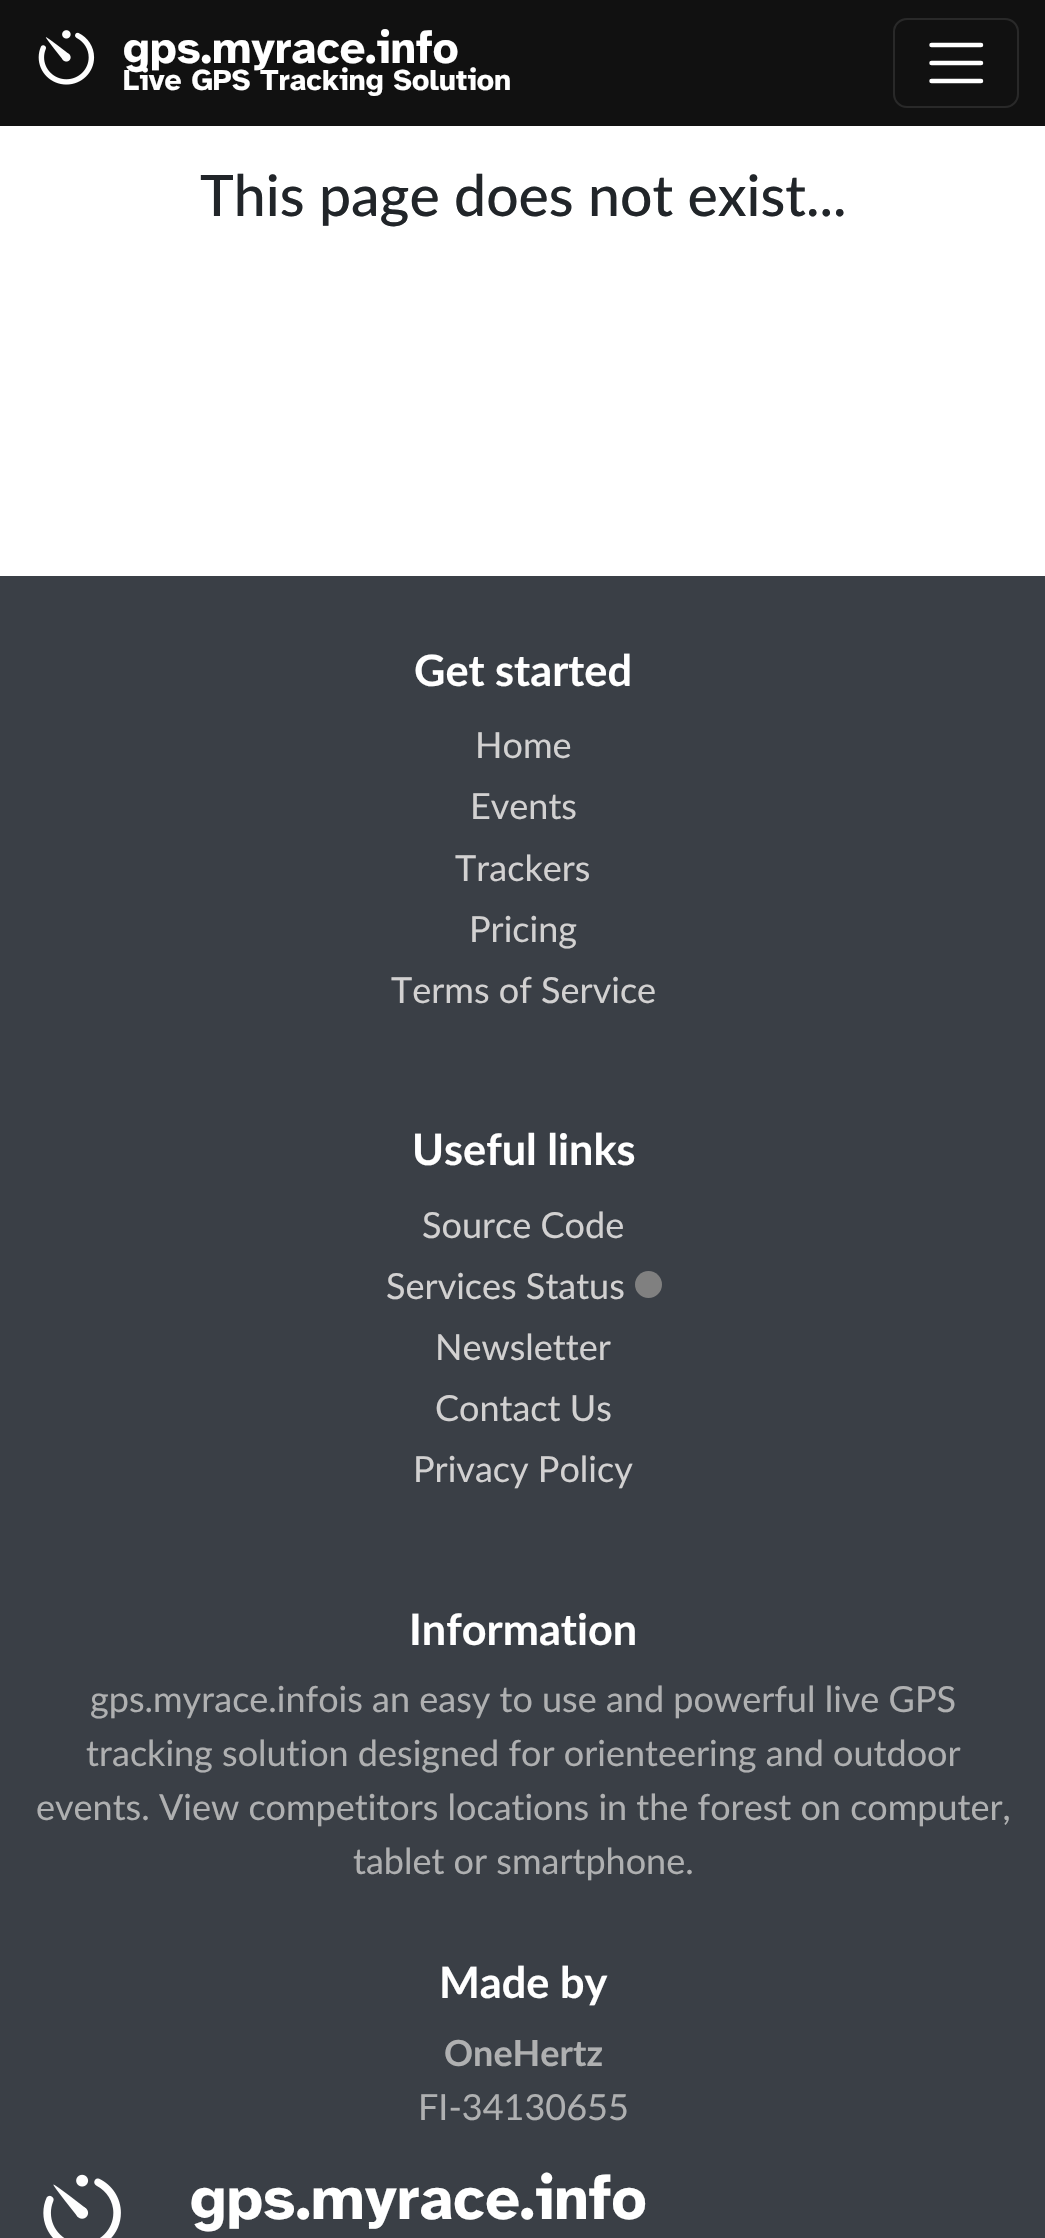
void draw(SkCanvas* canvas) {
    SkPaint paint;
    paint.setAntiAlias(true);
    canvas->clear(0xFFFFFFFF);
    paint.setColor(0xFF111111);
    canvas->drawRect(SkRect::MakeXYWH(0, 0, 1045, 126), paint);
    canvas->drawImageRect(SkImages::DeferredFromEncodedData(SkData::MakeFromFileName("img1.png")), SkRect::MakeXYWH(38, 30, 57, 55), SkSamplingOptions());
    SkFont font1(fontMgr->matchFamilyStyle("Atkinson Hyperlegible", SkFontStyle::Bold()), 45);
    font1.setSubpixel(true);
    paint.setColor(0xFFFFFFFF);
    canvas->drawString("gps.myrace.info", 123, 63, font1, paint);
    SkFont font2(fontMgr->matchFamilyStyle("Atkinson Hyperlegible", SkFontStyle::Bold()), 30.1f);
    font2.setSubpixel(true);
    canvas->drawString("Live GPS Tracking Solution", 123, 90, font2, paint);
    paint.setStyle(SkPaint::kStroke_Style);
    paint.setStrokeWidth(2);
    paint.setColor(0xFF292929);
    canvas->drawRoundRect(SkRect::MakeXYWH(894, 19, 124, 88), 13, 13, paint);
    paint.setStrokeWidth(4.5f);
    paint.setStrokeCap(SkPaint::kRound_Cap);
    paint.setColor(0xFFFFFFFF);
    canvas->drawPath(SkPathBuilder().moveTo(931.5f, 45).lineTo(981, 45).moveTo(931.5f, 63).lineTo(981, 63).moveTo(931.5f, 81).lineTo(981, 81).detach(), paint);
    SkFont font3(fontMgr->matchFamilyStyle("Lato", SkFontStyle(500, SkFontStyle::kNormal_Width, SkFontStyle::kUpright_Slant)), 57.1f);
    font3.setSubpixel(true);
    paint.setStyle(SkPaint::kFill_Style);
    paint.setColor(0xFF212529);
    canvas->drawString("This page does not exist...", 200, 216, font3, paint);
    paint.setColor(0xFF3A3F46);
    canvas->drawRect(SkRect::MakeXYWH(0, 576, 1045, 1662), paint);
    SkFont font4(fontMgr->matchFamilyStyle("Lato", SkFontStyle::Bold()), 43.25f);
    font4.setSubpixel(true);
    paint.setColor(0xFFFFFFFF);
    canvas->drawString("Get started", 414, 686, font4, paint);
    SkFont font5(fontMgr->matchFamilyStyle("Lato", SkFontStyle::Normal()), 36);
    font5.setSubpixel(true);
    paint.setColor(0xFFD2D1D1);
    canvas->drawString("Home", 475, 758, font5, paint);
    canvas->drawString("Events", 470, 819, font5, paint);
    canvas->drawString("Trackers", 455, 881, font5, paint);
    canvas->drawString("Pricing", 469, 942, font5, paint);
    canvas->drawString("Terms of Service", 391, 1003, font5, paint);
    paint.setColor(0xFFFFFFFF);
    canvas->drawString("Useful links", 412, 1165, font4, paint);
    paint.setColor(0xFFD2D1D1);
    canvas->drawString("Source Code", 422, 1238, font5, paint);
    canvas->drawString("Services Status", 386, 1299, font5, paint);
    paint.setColor(0xFF808080);
    canvas->drawCircle(648.5f, 1284.5f, 13.5f, paint);
    paint.setColor(0xFFD2D1D1);
    canvas->drawString("Newsletter", 435, 1360, font5, paint);
    canvas->drawString("Contact Us", 435, 1421, font5, paint);
    canvas->drawString("Privacy Policy", 413, 1482, font5, paint);
    paint.setColor(0xFFFFFFFF);
    canvas->drawString("Information", 409, 1645, font4, paint);
    paint.setColor(0xFFAFB0B1);
    canvas->drawString("gps.myrace.infois an easy to use and powerful live GPS", 90, 1712, font5, paint);
    canvas->drawString("tracking solution designed for orienteering and outdoor", 86, 1766, font5, paint);
    canvas->drawString("events. View competitors locations in the forest on computer,", 36, 1820, font5, paint);
    canvas->drawString("tablet or smartphone.", 353, 1874, font5, paint);
    paint.setColor(0xFFFFFFFF);
    canvas->drawString("Made by", 439, 1998, font4, paint);
    SkFont font6(fontMgr->matchFamilyStyle("Lato", SkFontStyle::Bold()), 36);
    font6.setSubpixel(true);
    paint.setColor(0xFFAFB0B1);
    canvas->drawString("OneHertz", 444, 2066, font6, paint);
    canvas->drawString("FI-34130655", 418, 2120, font5, paint);
    canvas->drawImageRect(SkImages::DeferredFromEncodedData(SkData::MakeFromFileName("img2.png")), SkRect::MakeXYWH(43, 2174, 78, 64), SkSamplingOptions());
    SkFont font7(fontMgr->matchFamilyStyle("Atkinson Hyperlegible", SkFontStyle::Bold()), 61.25f);
    font7.setSubpixel(true);
    paint.setColor(0xFFFFFFFF);
    canvas->drawString("gps.myrace.info", 190, 2219, font7, paint);
}
